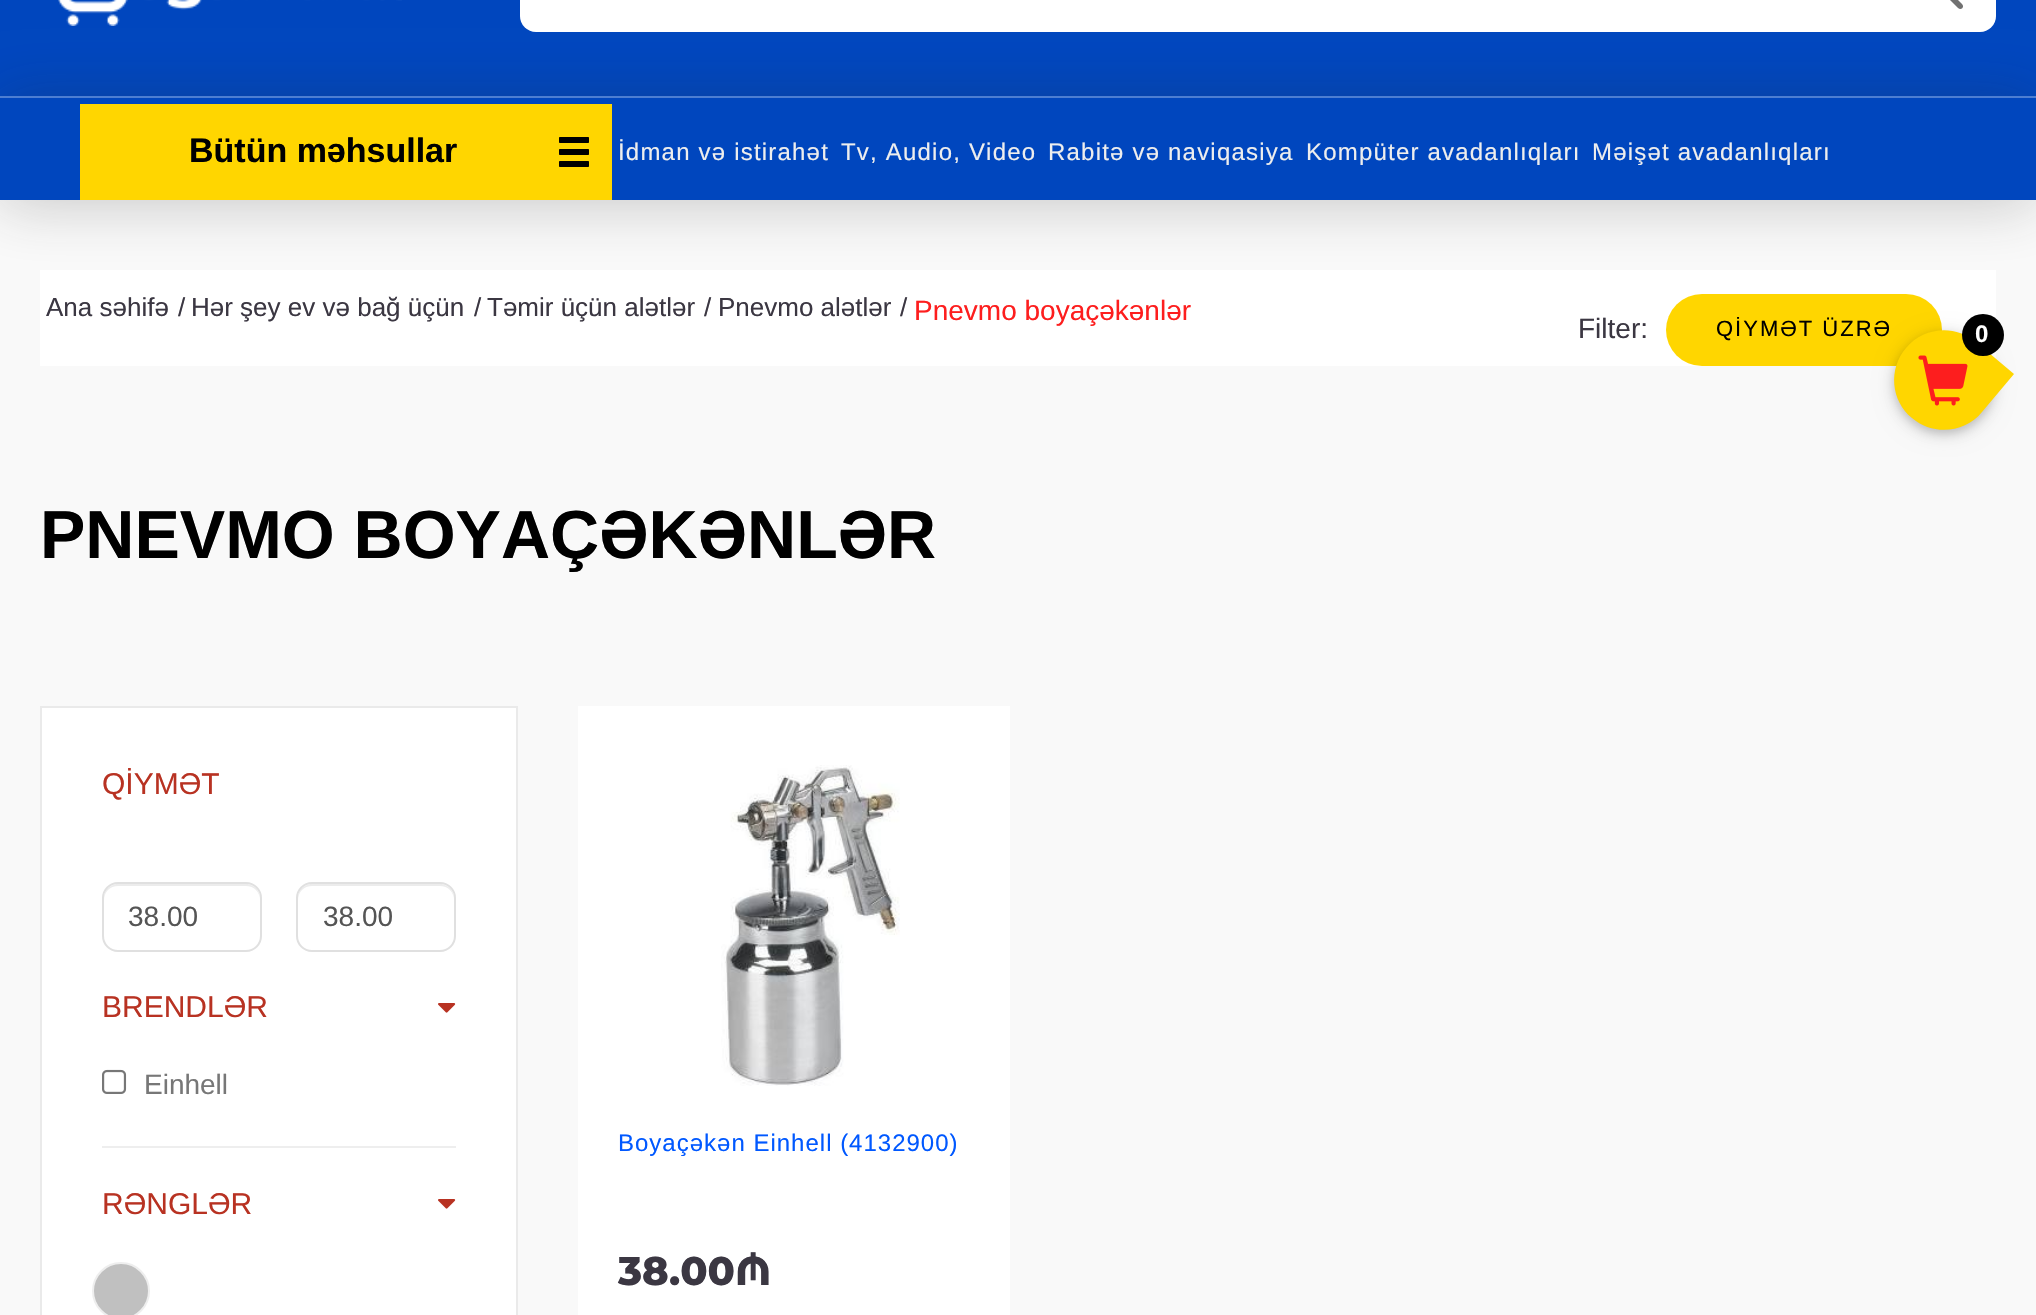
void draw(SkCanvas* canvas) {
    SkPaint paint;
    paint.setAntiAlias(true);
    auto spacedText = [&](const char* s, float x, float y, const SkFont& font, const SkPaint& ink, float letter, float word) {
        std::vector<SkGlyphID> glyphs(font.countText(s, strlen(s), SkTextEncoding::kUTF8));
        std::vector<float> xs(glyphs.size());
        font.textToGlyphs(s, strlen(s), SkTextEncoding::kUTF8, glyphs);
        font.getXPos(glyphs, xs, x);
        float extra = 0;
        for (size_t i = 0; i < glyphs.size(); i++) {
            xs[i] += extra;
            extra += letter + word * (glyphs[i] == font.unicharToGlyph(' '));
        }
        canvas->drawTextBlob(SkTextBlob::MakeFromPosHGlyphs(glyphs, xs, y, font), 0, 0, ink);
    };
    canvas->clear(0xFFF9F9F9);
    paint.setColor(0xFF0046BE);
    canvas->drawRect(SkRect::MakeXYWH(0, 0, 2036, 96), paint);
    paint.setColor(0xFFFFFFFF);
    canvas->drawRoundRect(SkRect::MakeXYWH(520, -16, 1476, 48), 16, 16, paint);
    paint.setColor(0xFF717171);
    canvas->drawPath(SkPathBuilder().moveTo(1962, 4).cubicTo(1965, 7, 1961, 11, 1958, 8).lineTo(1947, -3).cubicTo(1930, 8, 1910, -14, 1925, -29).cubicTo(1940, -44, 1962, -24, 1951, -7).close().moveTo(1937, -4).cubicTo(1954, -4, 1954, -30, 1937, -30).cubicTo(1920, -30, 1920, -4, 1937, -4).close().detach(), paint);
    paint.setColor(0xFFFFFFFF);
    canvas->drawRect(SkRect::MakeXYWH(40, 270, 1956, 96), paint);
    paint.setColor(0xFFFFD600);
    canvas->drawRoundRect(SkRect::MakeXYWH(1666, 294, 276, 72), 36, 36, paint);
    paint.setColor(0x402B2B2B);
    paint.setMaskFilter(SkMaskFilter::MakeBlur(kNormal_SkBlurStyle, 30));
    canvas->drawRect(SkRect::MakeXYWH(0, 100, 2036, 104), paint);
    paint.setMaskFilter(nullptr);
    canvas->drawImageRect(SkImages::DeferredFromEncodedData(SkData::MakeFromFileName("img1.png")), SkRect::MakeXYWH(58, 0, 344, 26), SkSamplingOptions());
    paint.setColor(0xFF0046BE);
    canvas->drawRect(SkRect::MakeXYWH(0, 98, 2036, 102), paint);
    paint.setColor(0xFF4D7ED2);
    canvas->drawRect(SkRect::MakeXYWH(0, 96, 2036, 2), paint);
    paint.setColor(0xFFFFD600);
    canvas->drawRect(SkRect::MakeXYWH(80, 104, 532, 96), paint);
    SkFont font1(fontMgr->matchFamilyStyle("Liberation Sans", SkFontStyle::Bold()), 34);
    font1.setSubpixel(true);
    paint.setColor(0xFF000000);
    canvas->drawString("Bütün məhsullar", 189, 162, font1, paint);
    canvas->drawImageRect(SkImages::DeferredFromEncodedData(SkData::MakeFromFileName("img2.png")), SkRect::MakeXYWH(559, 137, 30, 30), SkSamplingOptions());
    SkFont font2(fontMgr->matchFamilyStyle("Liberation Sans", SkFontStyle::Normal()), 24);
    font2.setSubpixel(true);
    paint.setColor(0xFFEEEEEE);
    spacedText("İdman və istirahət", 618, 160, font2, paint, 1.2f, 0);
    spacedText("Tv, Audio, Video", 841, 160, font2, paint, 1.2f, 0);
    spacedText("Rabitə və naviqasiya", 1048, 160, font2, paint, 1.2f, 0);
    spacedText("Kompüter avadanlıqları", 1306, 160, font2, paint, 1.2f, 0);
    spacedText("Məişət avadanlıqları", 1592, 160, font2, paint, 1.2f, 0);
    SkFont font3(fontMgr->matchFamilyStyle("Liberation Sans", SkFontStyle::Normal()), 26);
    font3.setSubpixel(true);
    paint.setColor(0xFF3B3742);
    canvas->drawString("Ana səhifə", 46, 316, font3, paint);
    canvas->drawString("/", 178, 316, font3, paint);
    canvas->drawString("Hər şey ev və bağ üçün", 191, 316, font3, paint);
    canvas->drawString("/", 474, 316, font3, paint);
    canvas->drawString("Təmir üçün alətlər", 487, 316, font3, paint);
    canvas->drawString("/", 704, 316, font3, paint);
    canvas->drawString("Pnevmo alətlər", 718, 316, font3, paint);
    canvas->drawString("/", 900, 316, font3, paint);
    SkFont font4(fontMgr->matchFamilyStyle("Liberation Sans", SkFontStyle::Normal()), 28);
    font4.setSubpixel(true);
    paint.setColor(0xFFFD1E1E);
    canvas->drawString("Pnevmo boyaçəkənlər", 914, 320, font4, paint);
    paint.setColor(0xFF3B3742);
    canvas->drawString("Filter:", 1578, 338, font4, paint);
    SkFont font5(fontMgr->matchFamilyStyle("Liberation Sans", SkFontStyle::Normal()), 22);
    font5.setSubpixel(true);
    paint.setColor(0xFF000000);
    spacedText("QİYMƏT ÜZRƏ", 1716, 336, font5, paint, 2, 0);
    SkFont font6(fontMgr->matchFamilyStyle("Liberation Sans", SkFontStyle::Bold()), 68);
    font6.setSubpixel(true);
    canvas->drawString("PNEVMO BOYAÇƏKƏNLƏR", 40, 558, font6, paint);
    paint.setColor(0xFFFFFFFF);
    canvas->drawRect(SkRect::MakeXYWH(41, 707, 476, 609), paint);
    paint.setStyle(SkPaint::kStroke_Style);
    paint.setStrokeWidth(2);
    paint.setColor(0xFFEAEAEA);
    canvas->drawRect(SkRect::MakeXYWH(41, 707, 476, 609), paint);
    SkFont font7(fontMgr->matchFamilyStyle("Liberation Sans", SkFontStyle::Normal()), 30);
    font7.setSubpixel(true);
    paint.setStyle(SkPaint::kFill_Style);
    paint.setColor(0xFFB83222);
    canvas->drawString("QİYMƏT", 102, 794, font7, paint);
    paint.setColor(0xFFECECEC);
    canvas->drawPath(SkPathBuilder().moveTo(118, 886).lineTo(246, 886).cubicTo(254, 886, 260, 892, 260, 900).cubicTo(260, 879, 239, 884, 225, 884).lineTo(139, 884).cubicTo(125, 884, 104, 879, 104, 900).cubicTo(104, 892, 110, 886, 118, 886).close().detach(), paint);
    paint.setStyle(SkPaint::kStroke_Style);
    paint.setColor(0xFFE0E0E0);
    canvas->drawRoundRect(SkRect::MakeXYWH(103, 883, 158, 68), 15, 15, paint);
    paint.setStyle(SkPaint::kFill_Style);
    paint.setColor(0xFF555555);
    canvas->drawString("38.00", 128, 926, font4, paint);
    paint.setColor(0xFFECECEC);
    canvas->drawPath(SkPathBuilder().moveTo(312, 886).lineTo(440, 886).cubicTo(448, 886, 454, 892, 454, 900).cubicTo(454, 879, 433, 884, 419, 884).lineTo(333, 884).cubicTo(319, 884, 298, 879, 298, 900).cubicTo(298, 892, 304, 886, 312, 886).close().detach(), paint);
    paint.setStyle(SkPaint::kStroke_Style);
    paint.setColor(0xFFE0E0E0);
    canvas->drawRoundRect(SkRect::MakeXYWH(297, 883, 158, 68), 15, 15, paint);
    paint.setStyle(SkPaint::kFill_Style);
    paint.setColor(0xFF555555);
    canvas->drawString("38.00", 323, 926, font4, paint);
    paint.setColor(0xFFEEEEEE);
    canvas->drawRect(SkRect::MakeXYWH(102, 1146, 354, 2), paint);
    paint.setColor(0xFFB83222);
    canvas->drawString("BRENDLƏR", 102, 1017, font7, paint);
    canvas->drawImageRect(SkImages::DeferredFromEncodedData(SkData::MakeFromFileName("img3.png")), SkRect::MakeXYWH(438, 1003, 18, 10), SkSamplingOptions());
    canvas->drawImageRect(SkImages::DeferredFromEncodedData(SkData::MakeFromFileName("img4.png")), SkRect::MakeXYWH(102, 1069, 25, 25), SkSamplingOptions());
    paint.setColor(0xFF777777);
    canvas->drawString("Einhell", 144, 1094, font4, paint);
    paint.setColor(0xFFB83222);
    canvas->drawString("RƏNGLƏR", 102, 1214, font7, paint);
    canvas->drawImageRect(SkImages::DeferredFromEncodedData(SkData::MakeFromFileName("img3.png")), SkRect::MakeXYWH(438, 1199, 18, 10), SkSamplingOptions());
    paint.setColor(0xFFC0C0C0);
    canvas->drawCircle(121, 1291, 28, paint);
    paint.setStyle(SkPaint::kStroke_Style);
    paint.setColor(0xFFEEEEEE);
    canvas->drawCircle(121, 1291, 28, paint);
    paint.setStyle(SkPaint::kFill_Style);
    paint.setColor(0xFFFFFFFF);
    canvas->drawRect(SkRect::MakeXYWH(578, 706, 432, 609), paint);
    canvas->drawImageRect(SkImages::DeferredFromEncodedData(SkData::MakeFromFileName("img5.png")), SkRect::MakeXYWH(721, 765, 179, 321), SkSamplingOptions());
    paint.setColor(0xFF0058FF);
    spacedText("Boyaçəkən Einhell (4132900)", 618, 1151, font2, paint, 1, 0);
    SkFont font8(fontMgr->matchFamilyStyle("Montserrat", SkFontStyle(800, SkFontStyle::kNormal_Width, SkFontStyle::kUpright_Slant)), 40);
    font8.setSubpixel(true);
    paint.setColor(0xFF3B3742);
    canvas->drawString("38.00₼", 618, 1285, font8, paint);
    paint.setColor(0x1F000000);
    paint.setMaskFilter(SkMaskFilter::MakeBlur(kNormal_SkBlurStyle, 10));
    canvas->drawRoundRect(SkRect::MakeXYWH(1894, 334, 100, 100), 50, 50, paint);
    paint.setMaskFilter(nullptr);
    paint.setColor(0x29000000);
    paint.setMaskFilter(SkMaskFilter::MakeBlur(kNormal_SkBlurStyle, 5));
    canvas->drawRoundRect(SkRect::MakeXYWH(1894, 334, 100, 100), 50, 50, paint);
    paint.setMaskFilter(nullptr);
    paint.setColor(0xFFFFD600);
    canvas->drawPath(SkPathBuilder().moveTo(1976, 342).lineTo(2014, 374).lineTo(1982, 412).cubicTo(1965, 433, 1933, 436, 1912, 418).cubicTo(1891, 401, 1888, 369, 1906, 348).cubicTo(1923, 327, 1955, 324, 1976, 342).close().detach(), paint);
    canvas->drawImageRect(SkImages::DeferredFromEncodedData(SkData::MakeFromFileName("img6.png")), SkRect::MakeXYWH(1918, 355, 50, 51), SkSamplingOptions());
    paint.setColor(0xFF000000);
    canvas->drawCircle(1983, 335, 21, paint);
    SkFont font9(fontMgr->matchFamilyStyle("Liberation Sans", SkFontStyle::Bold()), 24);
    font9.setSubpixel(true);
    paint.setColor(0xFFFFFFFF);
    canvas->drawString("0", 1975, 342, font9, paint);
}
